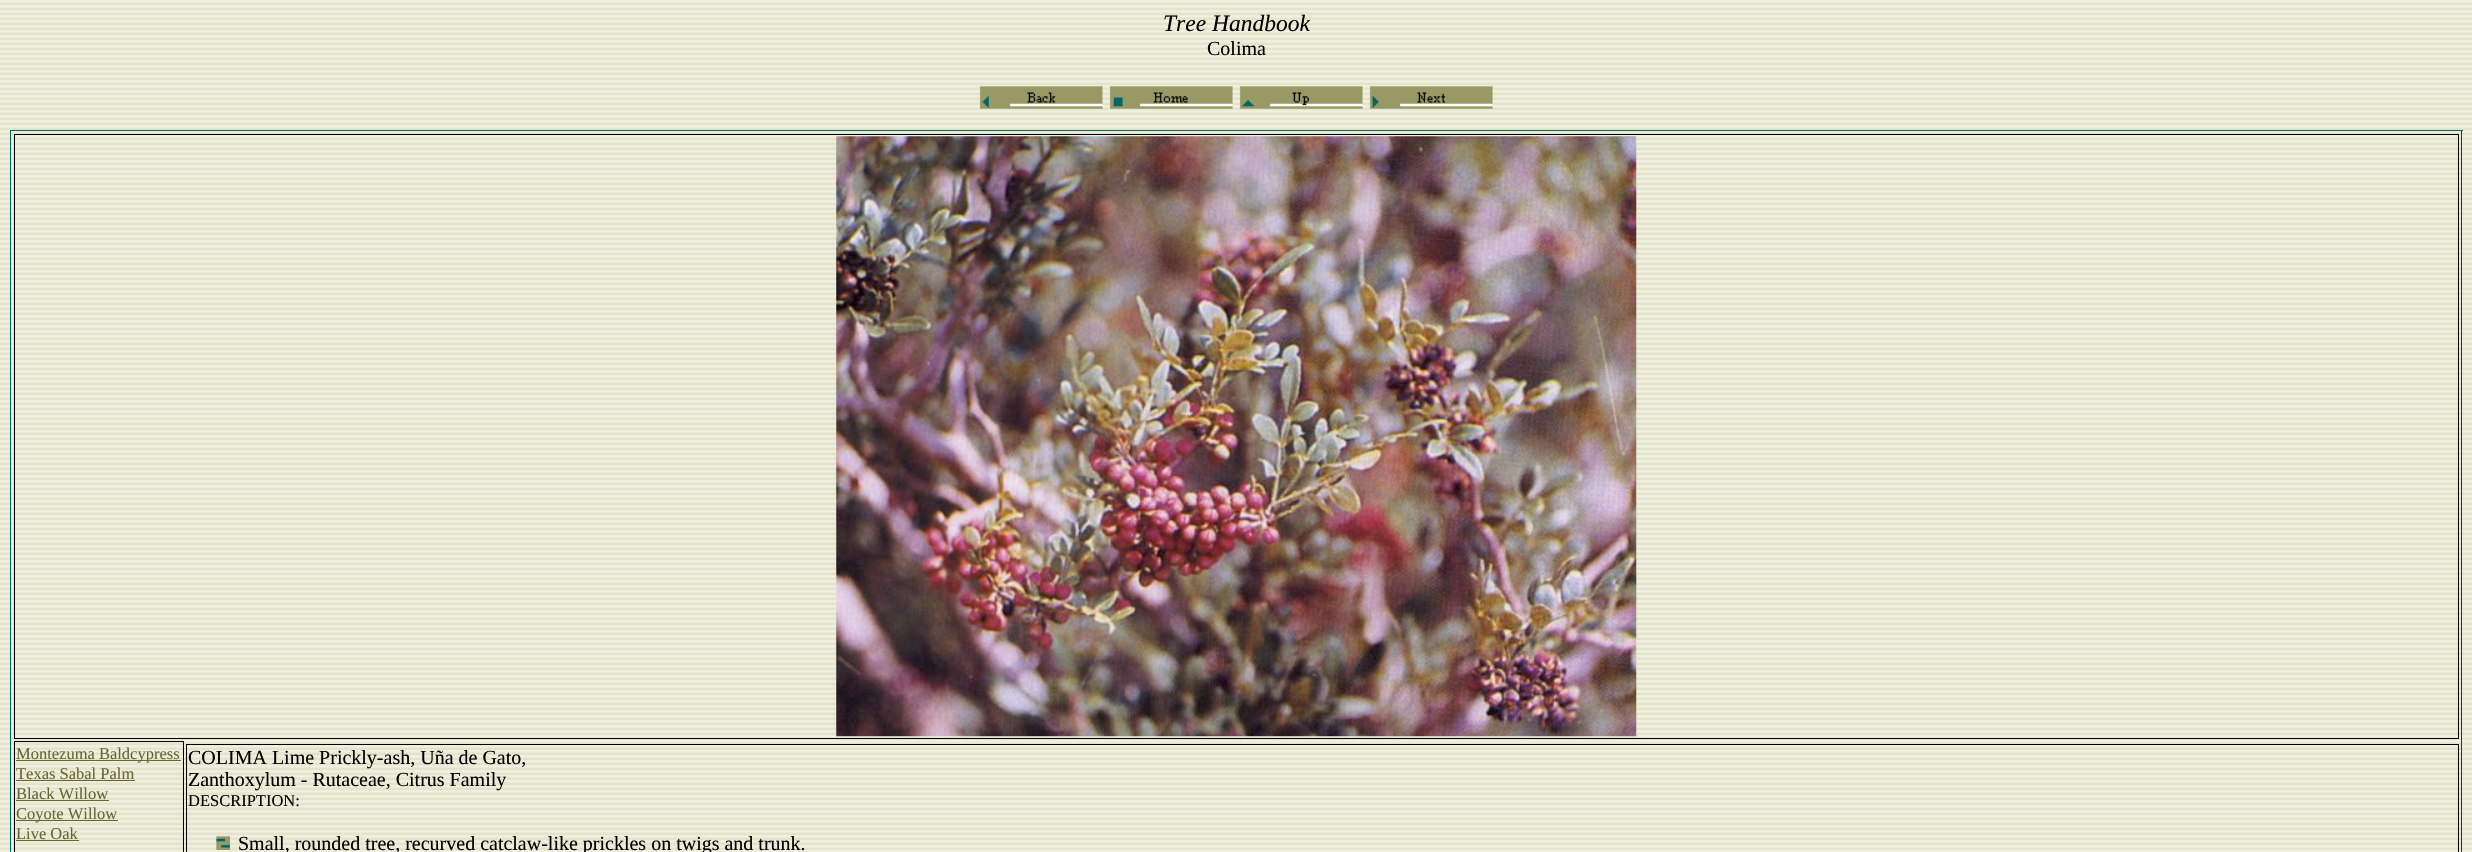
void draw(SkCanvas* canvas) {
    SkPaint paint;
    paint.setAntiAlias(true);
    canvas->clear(0xFFFFFFFF);
    canvas->drawImageRect(SkImages::DeferredFromEncodedData(SkData::MakeFromFileName("img1.png")), SkRect::MakeXYWH(0, 0, 2472, 852), SkSamplingOptions());
    SkFont font1(fontMgr->matchFamilyStyle("Liberation Serif", SkFontStyle::Italic()), 23.5f);
    font1.setSubpixel(true);
    paint.setColor(0xFF000000);
    canvas->drawString("Tree Handbook", 1163, 31, font1, paint);
    SkFont font2(fontMgr->matchFamilyStyle("Liberation Serif", SkFontStyle::Normal()), 20);
    font2.setSubpixel(true);
    canvas->drawString("Colima", 1207, 55, font2, paint);
    canvas->drawImageRect(SkImages::DeferredFromEncodedData(SkData::MakeFromFileName("img2.png")), SkRect::MakeXYWH(979, 86, 124, 23), SkSamplingOptions());
    canvas->drawImageRect(SkImages::DeferredFromEncodedData(SkData::MakeFromFileName("img3.png")), SkRect::MakeXYWH(1109, 86, 124, 23), SkSamplingOptions());
    canvas->drawImageRect(SkImages::DeferredFromEncodedData(SkData::MakeFromFileName("img4.png")), SkRect::MakeXYWH(1239, 86, 124, 23), SkSamplingOptions());
    canvas->drawImageRect(SkImages::DeferredFromEncodedData(SkData::MakeFromFileName("img5.png")), SkRect::MakeXYWH(1369, 86, 124, 23), SkSamplingOptions());
    paint.setColor(0xFF006666);
    canvas->drawRect(SkRect::MakeXYWH(10, 130, 2453, 1), paint);
    paint.setColor(0xFF004444);
    canvas->drawRect(SkRect::MakeXYWH(2461, 130, 1, 722), paint);
    paint.setColor(0xFF006666);
    canvas->drawRect(SkRect::MakeXYWH(10, 130, 1, 722), paint);
    paint.setStyle(SkPaint::kStroke_Style);
    paint.setStrokeWidth(1);
    paint.setColor(0xFF000000);
    canvas->drawRect(SkRect::MakeXYWH(14.5f, 134.5f, 2444, 604), paint);
    canvas->drawImageRect(SkImages::DeferredFromEncodedData(SkData::MakeFromFileName("img6.png")), SkRect::MakeXYWH(836, 136, 801, 601), SkSamplingOptions());
    canvas->drawRect(SkRect::MakeXYWH(14.5f, 741.5f, 169, 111), paint);
    paint.setStyle(SkPaint::kFill_Style);
    paint.setColor(0xFF666633);
    canvas->drawRect(SkRect::MakeXYWH(16, 760, 165, 1), paint);
    SkFont font3(fontMgr->matchFamilyStyle("Liberation Serif", SkFontStyle::Normal()), 16.5f);
    font3.setSubpixel(true);
    canvas->drawString("Montezuma Baldcypress", 16, 759, font3, paint);
    canvas->drawString("Texas Sabal Palm", 16, 779, font3, paint);
    canvas->drawRect(SkRect::MakeXYWH(16, 780, 119, 1), paint);
    canvas->drawString("Black Willow", 16, 799, font3, paint);
    canvas->drawRect(SkRect::MakeXYWH(16, 800, 93, 1), paint);
    canvas->drawRect(SkRect::MakeXYWH(16, 820, 102, 1), paint);
    canvas->drawString("Coyote Willow", 16, 819, font3, paint);
    canvas->drawString("Live Oak", 16, 839, font3, paint);
    canvas->drawRect(SkRect::MakeXYWH(16, 840, 63, 1), paint);
    paint.setStyle(SkPaint::kStroke_Style);
    paint.setColor(0xFF000000);
    canvas->drawRect(SkRect::MakeXYWH(186.5f, 744.5f, 2272, 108), paint);
    paint.setStyle(SkPaint::kFill_Style);
    canvas->drawString("COLIMA Lime Prickly-ash, Uña de Gato,", 188, 764, font2, paint);
    canvas->drawString("Zanthoxylum - Rutaceae, Citrus Family", 188, 786, font2, paint);
    canvas->drawString("DESCRIPTION:", 188, 806, font3, paint);
    canvas->drawImageRect(SkImages::DeferredFromEncodedData(SkData::MakeFromFileName("img7.png")), SkRect::MakeXYWH(216, 836, 14, 14), SkSamplingOptions());
    canvas->drawString("Small, rounded tree, recurved catclaw-like prickles on twigs and trunk.", 238, 850, font2, paint);
}
